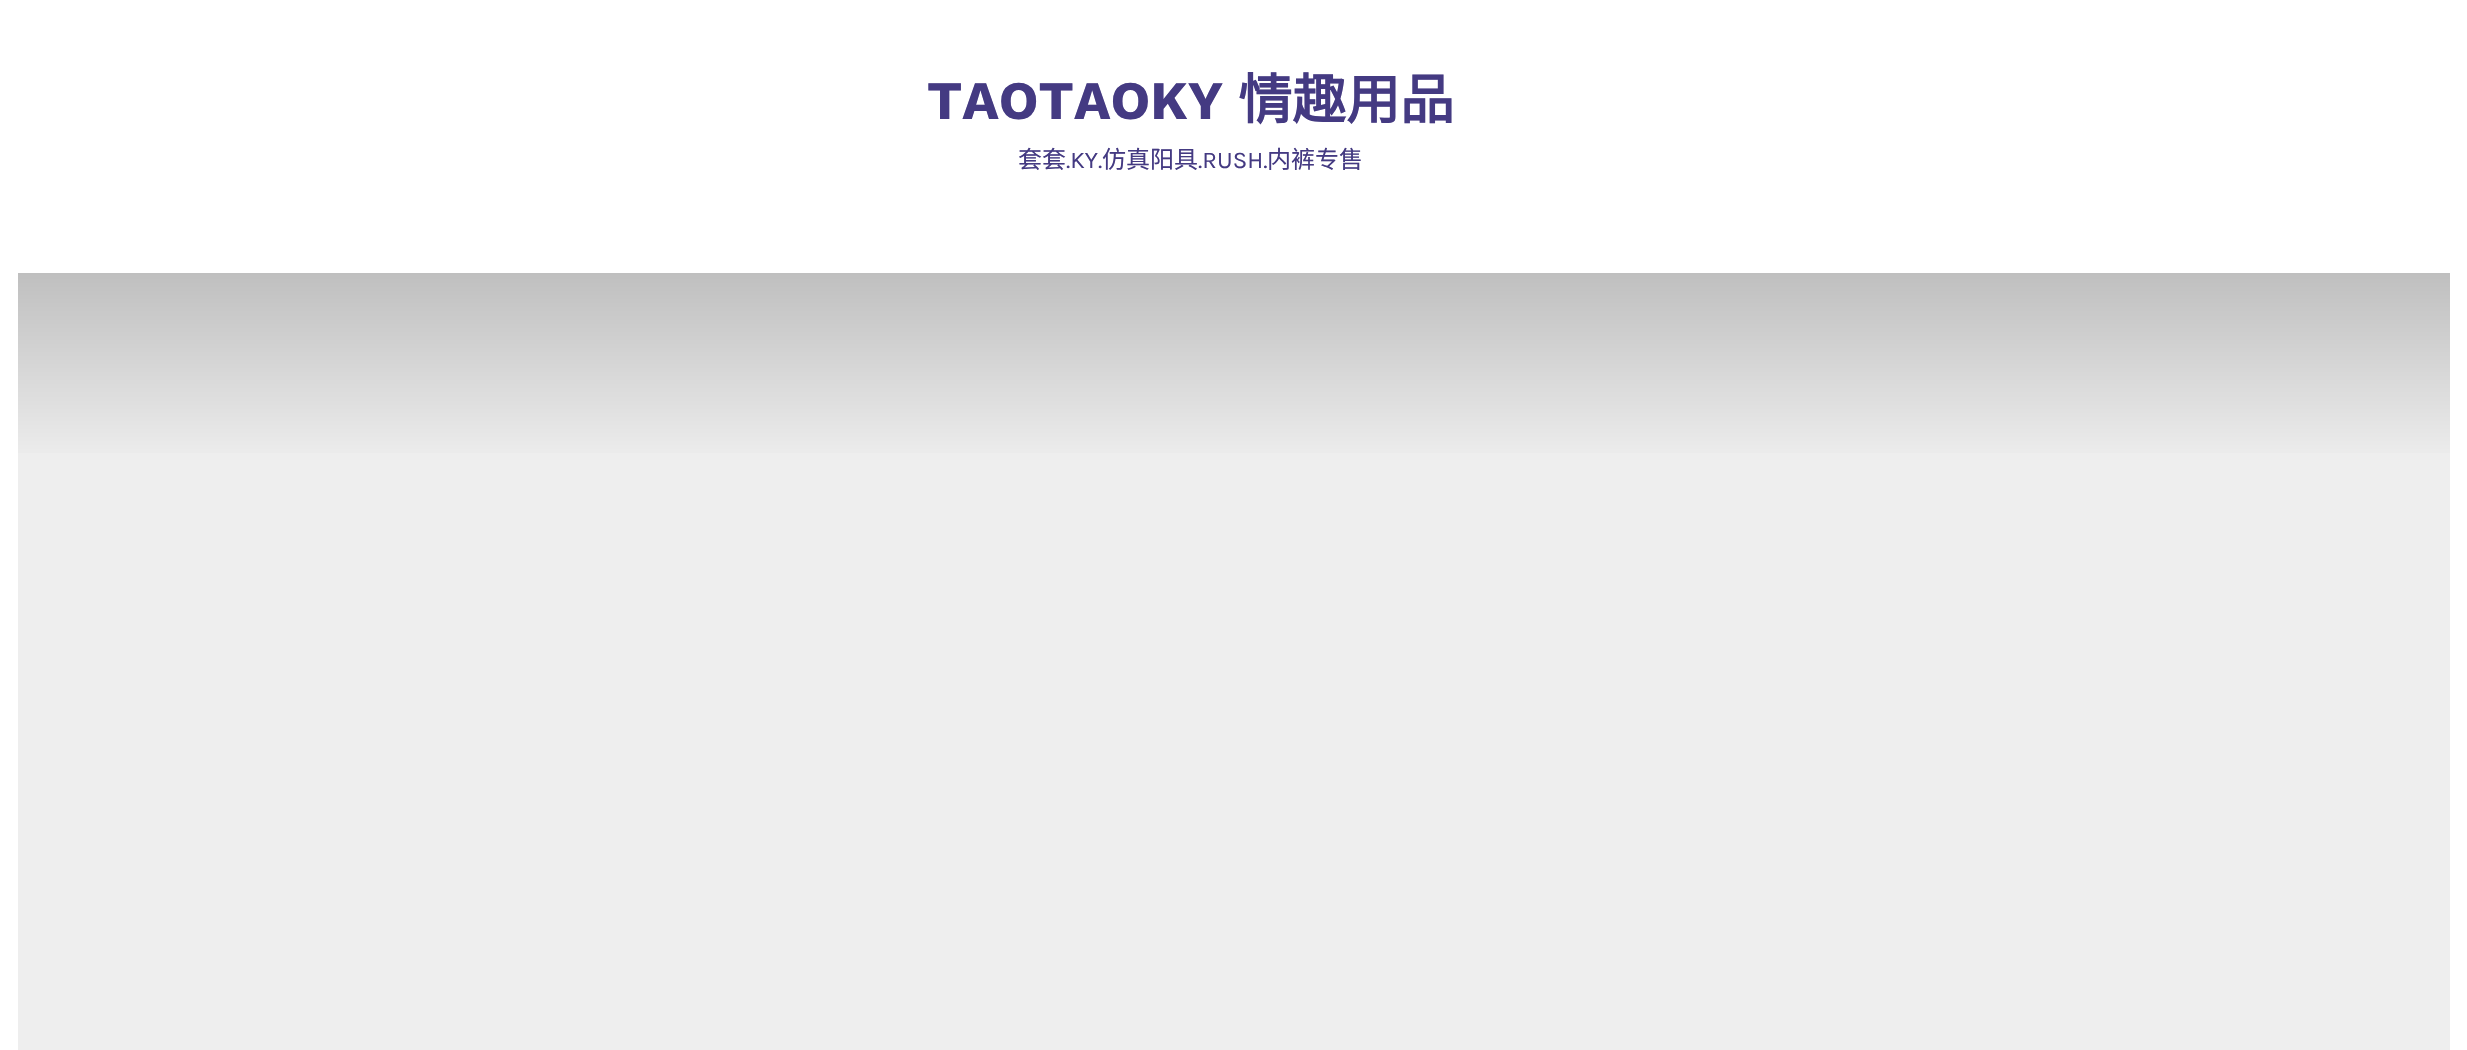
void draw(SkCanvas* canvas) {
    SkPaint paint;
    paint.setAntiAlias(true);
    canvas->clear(0xFFEEEEEE);
    paint.setColor(0xFFFFFFFF);
    canvas->drawRect(SkRect::MakeXYWH(2450, 0, 17, 1050), paint);
    canvas->drawRect(SkRect::MakeXYWH(0, 0, 18, 1050), paint);
    canvas->drawRect(SkRect::MakeXYWH(18, 0, 2432, 273), paint);
    SkFont font1(fontMgr->matchFamilyStyle("Work Sans", SkFontStyle::Bold()), 54);
    font1.setSubpixel(true);
    paint.setColor(0xFF443A82);
    canvas->drawString("TAOTAOKY", 927, 119, font1, paint);
    SkFont font2(fontMgr->matchFamilyStyle("Noto Sans CJK TC", SkFontStyle::Bold()), 54);
    font2.setSubpixel(true);
    canvas->drawString("情趣用品", 1238, 119, font2, paint);
    SkFont font3(fontMgr->matchFamilyStyle("Noto Sans CJK TC", SkFontStyle::Normal()), 24);
    font3.setSubpixel(true);
    canvas->drawString("套套", 1018, 168, font3, paint);
    SkFont font4(fontMgr->matchFamilyStyle("Karla", SkFontStyle::Normal()), 24);
    font4.setSubpixel(true);
    canvas->drawString(".KY.", 1066, 168, font4, paint);
    canvas->drawString("仿真阳具", 1102, 168, font3, paint);
    canvas->drawString(".RUSH.", 1198, 168, font4, paint);
    canvas->drawString("内裤专售", 1267, 168, font3, paint);
    {
        const SkColor colors[] = {0xFFBFBFBF, 0xFFEFEFEF};
        const float stops[] = {0, 0.4f};
        const SkPoint ends[] = {{1234, 273}, {1234, 759}};
        paint.setShader(SkGradientShader::MakeLinear(ends, colors, stops, 2, SkTileMode::kClamp));
        paint.setAlpha(255);
    }
    canvas->drawRect(SkRect::MakeXYWH(18, 273, 2432, 180), paint);
}
